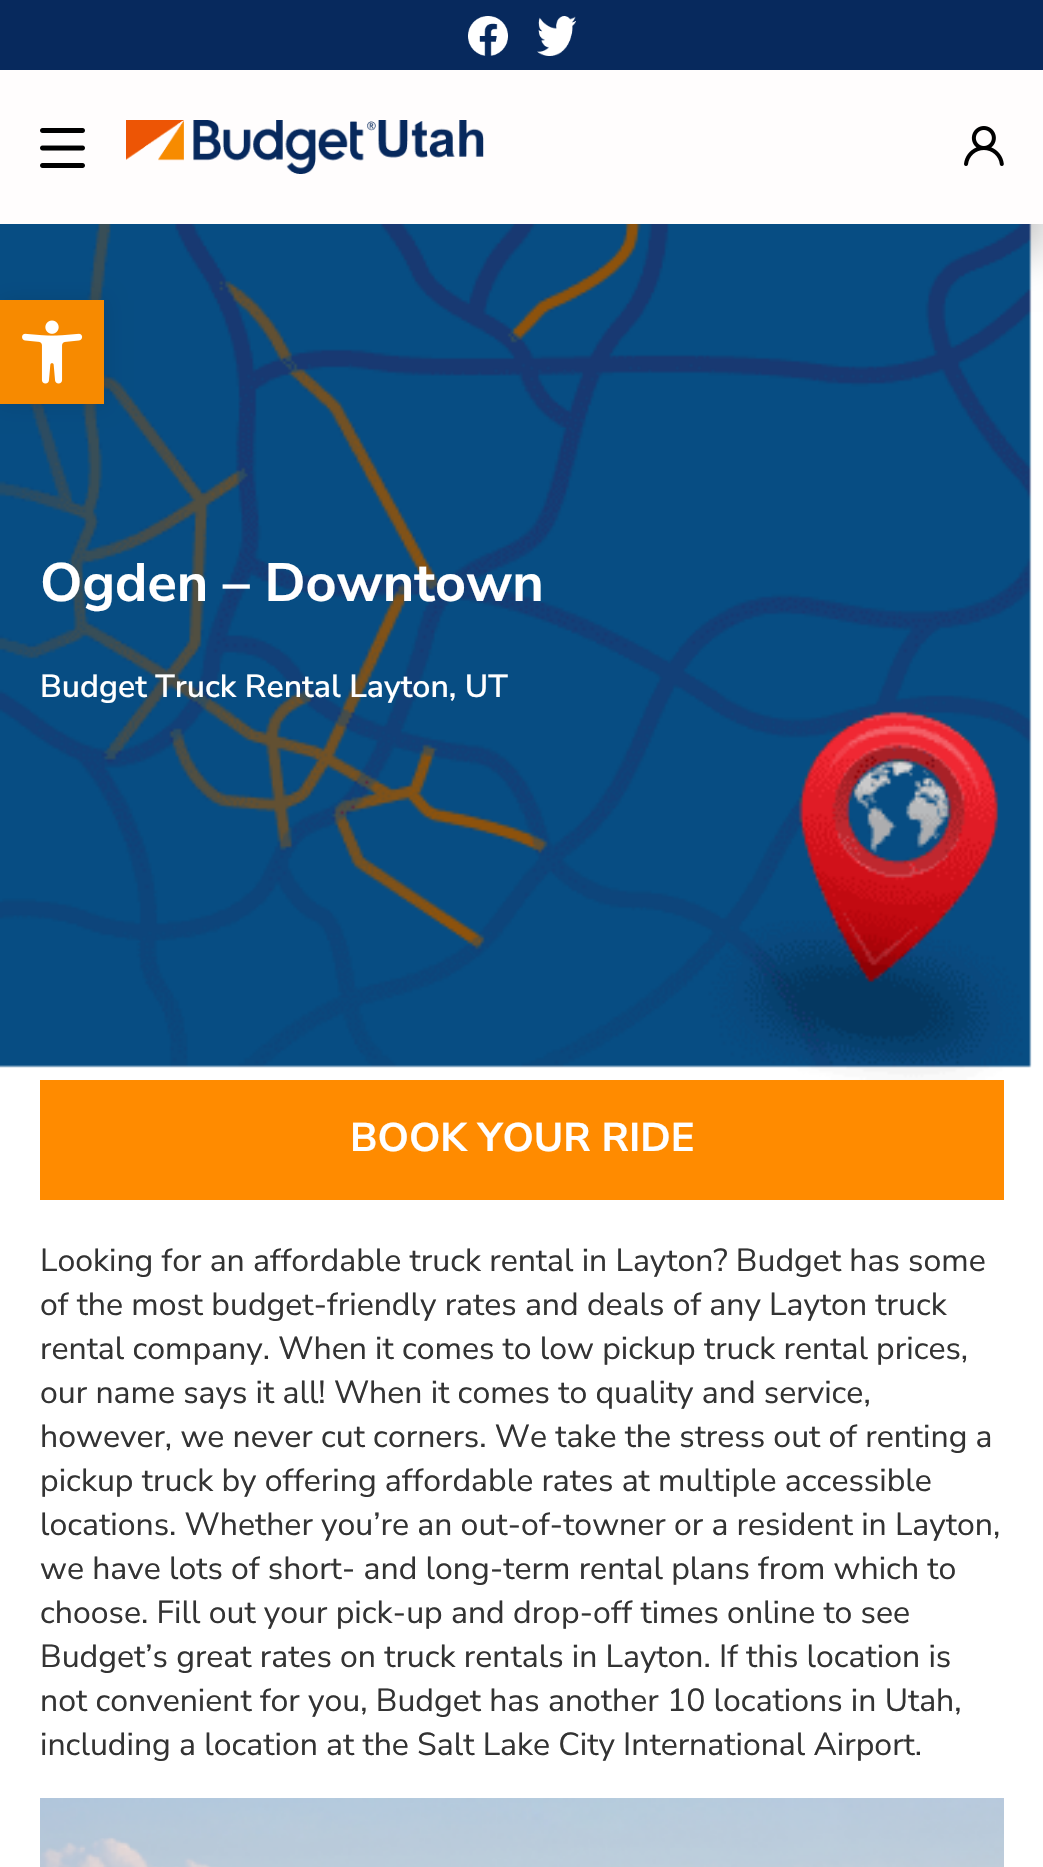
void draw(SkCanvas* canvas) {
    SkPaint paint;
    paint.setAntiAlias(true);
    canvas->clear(0xFFFFFFFF);
    paint.setColor(0x40000000);
    paint.setMaskFilter(SkMaskFilter::MakeBlur(kNormal_SkBlurStyle, 20));
    canvas->drawRect(SkRect::MakeXYWH(0, 98, 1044, 154), paint);
    paint.setMaskFilter(nullptr);
    canvas->drawImageRect(SkImages::DeferredFromEncodedData(SkData::MakeFromFileName("img7.png")), SkRect::MakeXYWH(0, 224, 1032, 856), SkSamplingOptions());
    paint.setColor(0x1A000000);
    paint.setMaskFilter(SkMaskFilter::MakeBlur(kNormal_SkBlurStyle, 10));
    canvas->drawRect(SkRect::MakeXYWH(0, 300, 104, 104), paint);
    paint.setMaskFilter(nullptr);
    paint.setColor(0xFFF78A00);
    canvas->drawRect(SkRect::MakeXYWH(0, 300, 104, 104), paint);
    canvas->drawImageRect(SkImages::DeferredFromEncodedData(SkData::MakeFromFileName("img1.png")), SkRect::MakeXYWH(22, 320, 61, 64), SkSamplingOptions());
    paint.setColor(0xFF07295D);
    canvas->drawRect(SkRect::MakeXYWH(0, 0, 1043, 70), paint);
    canvas->drawImageRect(SkImages::DeferredFromEncodedData(SkData::MakeFromFileName("img2.png")), SkRect::MakeXYWH(468, 16, 40, 40), SkSamplingOptions());
    canvas->drawImageRect(SkImages::DeferredFromEncodedData(SkData::MakeFromFileName("img3.png")), SkRect::MakeXYWH(537, 16, 39, 40), SkSamplingOptions());
    paint.setColor(0xFFFFFDFD);
    canvas->drawRect(SkRect::MakeXYWH(0, 70, 1043, 154), paint);
    canvas->drawImageRect(SkImages::DeferredFromEncodedData(SkData::MakeFromFileName("img4.png")), SkRect::MakeXYWH(40, 128, 45, 40), SkSamplingOptions());
    canvas->drawImageRect(SkImages::DeferredFromEncodedData(SkData::MakeFromFileName("img5.png")), SkRect::MakeXYWH(126, 120, 358, 54), SkSamplingOptions());
    canvas->drawImageRect(SkImages::DeferredFromEncodedData(SkData::MakeFromFileName("img6.png")), SkRect::MakeXYWH(964, 126, 40, 40), SkSamplingOptions());
    SkFont font1(fontMgr->matchFamilyStyle("Nunito Sans", SkFontStyle::Bold()), 54);
    font1.setSubpixel(true);
    paint.setColor(0xFFFFFFFF);
    canvas->drawString("Ogden – Downtown", 40, 601, font1, paint);
    SkFont font2(fontMgr->matchFamilyStyle("Nunito Sans", SkFontStyle(600, SkFontStyle::kNormal_Width, SkFontStyle::kUpright_Slant)), 32);
    font2.setSubpixel(true);
    canvas->drawString("Budget Truck Rental Layton, UT", 40, 697, font2, paint);
    paint.setColor(0xFFFF8B00);
    canvas->drawRect(SkRect::MakeXYWH(40, 1080, 964, 120), paint);
    SkFont font3(fontMgr->matchFamilyStyle("Nunito Sans", SkFontStyle::Bold()), 40);
    font3.setSubpixel(true);
    paint.setColor(0xFFFFFFFF);
    canvas->drawString("BOOK YOUR RIDE", 350, 1151, font3, paint);
    SkFont font4(fontMgr->matchFamilyStyle("Nunito Sans", SkFontStyle::Normal()), 32);
    font4.setSubpixel(true);
    paint.setColor(0xFF333333);
    canvas->drawString("Looking for an affordable truck rental in Layton? Budget has some", 40, 1271, font4, paint);
    canvas->drawString("of the most budget-friendly rates and deals of any Layton truck", 40, 1315, font4, paint);
    canvas->drawString("rental company. When it comes to low pickup truck rental prices,", 40, 1359, font4, paint);
    canvas->drawString("our name says it all! When it comes to quality and service,", 40, 1403, font4, paint);
    canvas->drawString("however, we never cut corners. We take the stress out of renting a", 40, 1447, font4, paint);
    canvas->drawString("pickup truck by offering affordable rates at multiple accessible", 40, 1491, font4, paint);
    canvas->drawString("locations. Whether you’re an out-of-towner or a resident in Layton,", 40, 1535, font4, paint);
    canvas->drawString("we have lots of short- and long-term rental plans from which to", 40, 1579, font4, paint);
    canvas->drawString("choose. Fill out your pick-up and drop-off times online to see", 40, 1623, font4, paint);
    canvas->drawString("Budget’s great rates on truck rentals in Layton. If this location is", 40, 1667, font4, paint);
    canvas->drawString("not convenient for you, Budget has another 10 locations in Utah,", 40, 1711, font4, paint);
    canvas->drawString("including a location at the Salt Lake City International Airport.", 40, 1755, font4, paint);
    canvas->drawImageRect(SkImages::DeferredFromEncodedData(SkData::MakeFromFileName("img8.png")), SkRect::MakeXYWH(40, 1798, 964, 69), SkSamplingOptions());
}
